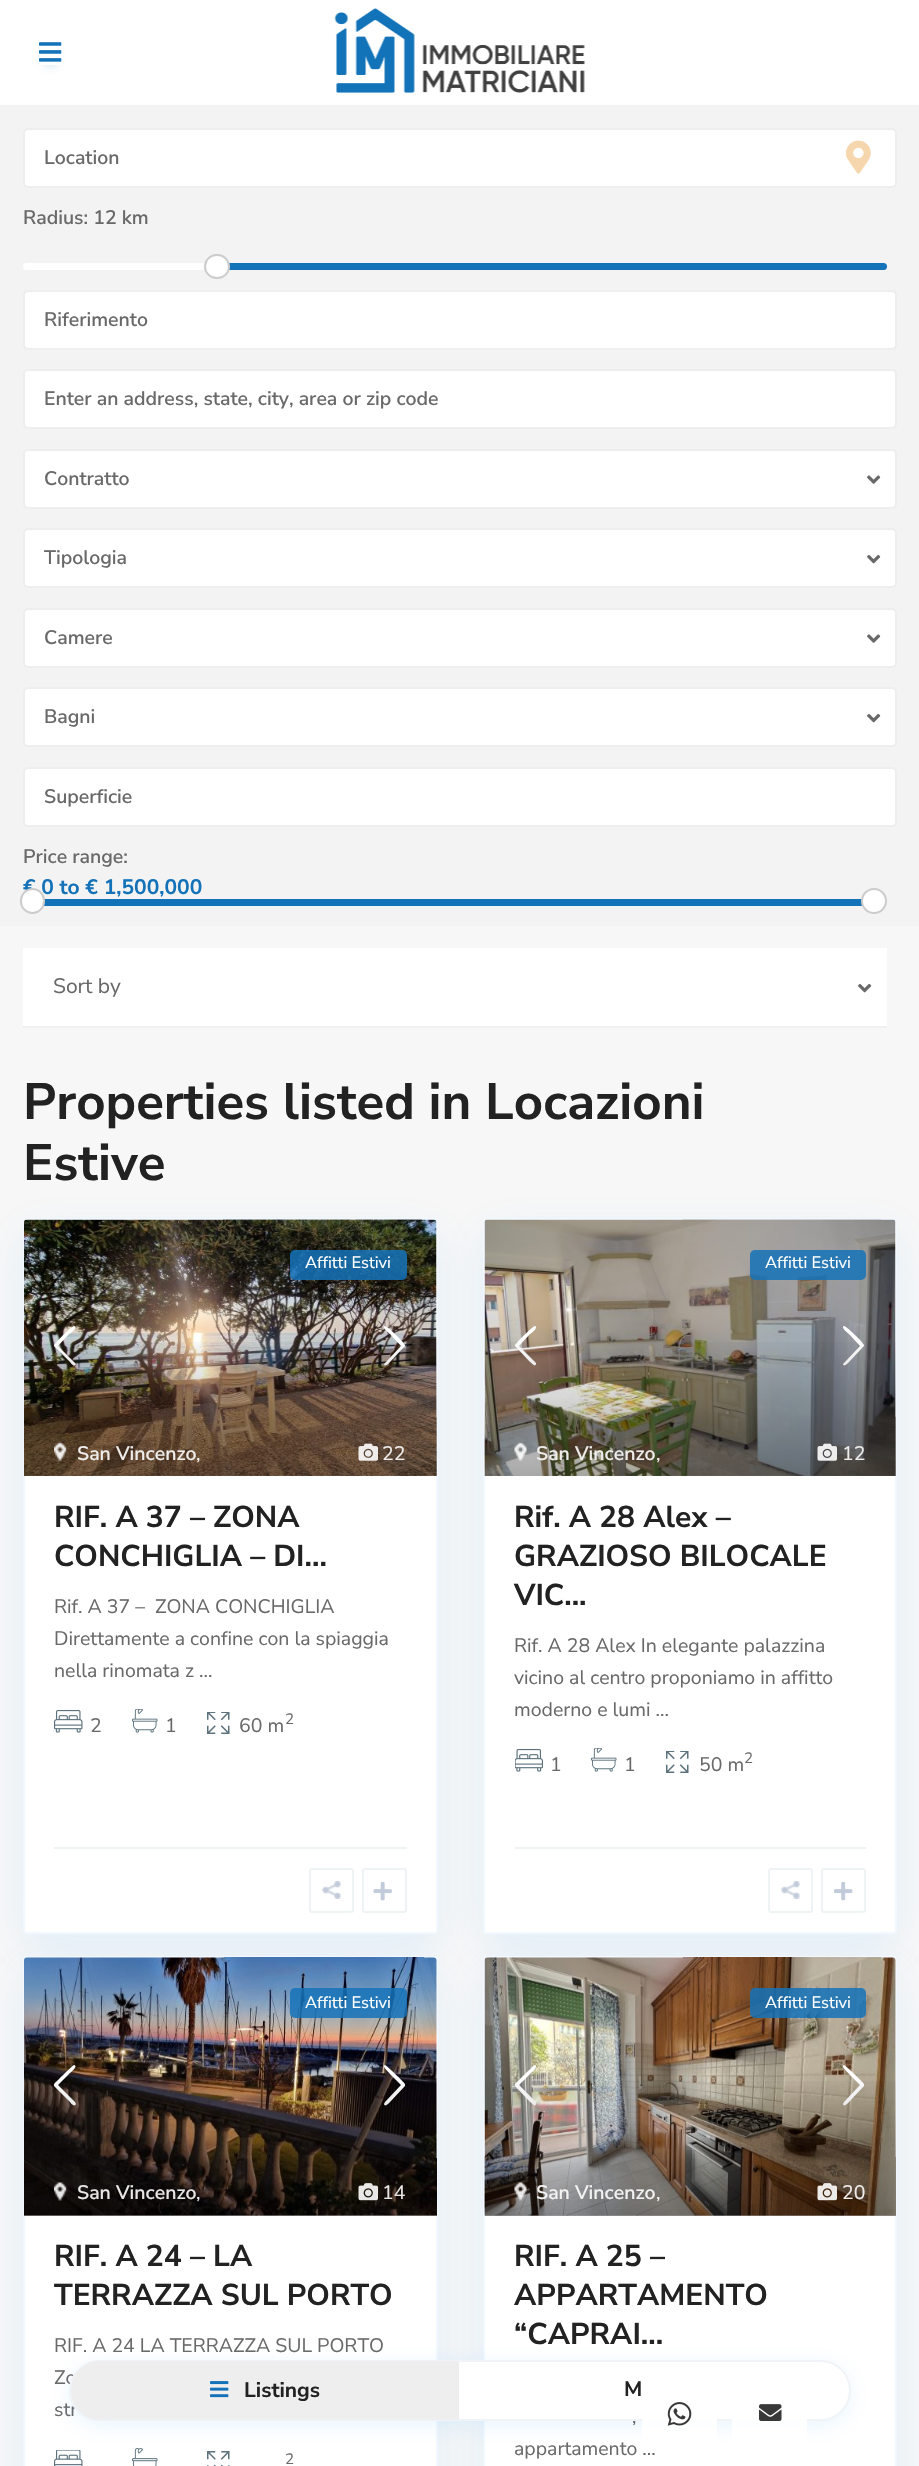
void draw(SkCanvas* canvas) {
    SkPaint paint;
    paint.setAntiAlias(true);
    canvas->clear(0xFFF7F7F7);
    paint.setColor(0xFFFFFFFF);
    canvas->drawRect(SkRect::MakeXYWH(0, 0, 919, 105), paint);
    canvas->save();
    canvas->clipPath(SkPathBuilder(SkPathFillType::kEvenOdd).moveTo(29, 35).lineTo(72, 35).lineTo(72, 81).lineTo(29, 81).close().moveTo(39, 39).lineTo(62, 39).lineTo(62, 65).lineTo(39, 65).close().detach(), true);
    paint.setColor(0xFF1472B9);
    paint.setMaskFilter(SkMaskFilter::MakeBlur(kNormal_SkBlurStyle, 6));
    canvas->drawRect(SkRect::MakeXYWH(48, 54, 5, 8), paint);
    paint.setMaskFilter(nullptr);
    canvas->restore();
    canvas->drawImageRect(SkImages::DeferredFromEncodedData(SkData::MakeFromFileName("img1.png")), SkRect::MakeXYWH(39, 42, 23, 20), SkSamplingOptions());
    canvas->drawImageRect(SkImages::DeferredFromEncodedData(SkData::MakeFromFileName("img2.png")), SkRect::MakeXYWH(334, 8, 251, 85), SkSamplingOptions());
    paint.setColor(0xFFF3F3F3);
    canvas->drawRect(SkRect::MakeXYWH(0, 105, 919, 821), paint);
    paint.setColor(0xFFFFFFFF);
    canvas->drawRoundRect(SkRect::MakeXYWH(24, 129, 872, 58), 4, 4, paint);
    paint.setStyle(SkPaint::kStroke_Style);
    paint.setStrokeWidth(2);
    paint.setColor(0xFFEEEEEE);
    canvas->drawRoundRect(SkRect::MakeXYWH(24, 129, 872, 58), 4, 4, paint);
    SkFont font1(fontMgr->matchFamilyStyle("Nunito Sans", SkFontStyle(600, SkFontStyle::kNormal_Width, SkFontStyle::kUpright_Slant)), 19.5f);
    font1.setSubpixel(true);
    paint.setStyle(SkPaint::kFill_Style);
    paint.setColor(0xFF696969);
    canvas->drawString("Location", 44, 164, font1, paint);
    canvas->drawImageRect(SkImages::DeferredFromEncodedData(SkData::MakeFromFileName("img3.png")), SkRect::MakeXYWH(846, 140, 25, 34), SkSamplingOptions());
    canvas->drawString("Radius: 12 km", 23, 224, font1, paint);
    paint.setColor(0xFFFFFFFF);
    canvas->drawRoundRect(SkRect::MakeXYWH(23, 263, 864, 7), 3.5f, 3.5f, paint);
    paint.setColor(0xFF1472B9);
    canvas->drawRoundRect(SkRect::MakeXYWH(216, 263, 671, 7), 3.5f, 3.5f, paint);
    paint.setColor(0xFFFFFFFF);
    canvas->drawRoundRect(SkRect::MakeXYWH(205, 255, 24, 23), 11.5f, 11.5f, paint);
    paint.setStyle(SkPaint::kStroke_Style);
    paint.setColor(0xFFCCCCCC);
    canvas->drawRoundRect(SkRect::MakeXYWH(205, 255, 24, 23), 11.5f, 11.5f, paint);
    paint.setStyle(SkPaint::kFill_Style);
    paint.setColor(0xFFFFFFFF);
    canvas->drawRoundRect(SkRect::MakeXYWH(24, 291, 872, 58), 4, 4, paint);
    paint.setStyle(SkPaint::kStroke_Style);
    paint.setColor(0xFFEEEEEE);
    canvas->drawRoundRect(SkRect::MakeXYWH(24, 291, 872, 58), 4, 4, paint);
    paint.setStyle(SkPaint::kFill_Style);
    paint.setColor(0xFF696969);
    canvas->drawString("Riferimento", 44, 326, font1, paint);
    paint.setColor(0xFFFFFFFF);
    canvas->drawRoundRect(SkRect::MakeXYWH(24, 370, 872, 58), 4, 4, paint);
    paint.setStyle(SkPaint::kStroke_Style);
    paint.setColor(0xFFEEEEEE);
    canvas->drawRoundRect(SkRect::MakeXYWH(24, 370, 872, 58), 4, 4, paint);
    paint.setStyle(SkPaint::kFill_Style);
    paint.setColor(0xFF696969);
    canvas->drawString("Enter an address, state, city, area or zip code", 44, 405, font1, paint);
    paint.setColor(0xFFFFFFFF);
    canvas->drawRoundRect(SkRect::MakeXYWH(24, 450, 872, 58), 4, 4, paint);
    paint.setStyle(SkPaint::kStroke_Style);
    paint.setColor(0xFFEEEEEE);
    canvas->drawRoundRect(SkRect::MakeXYWH(24, 450, 872, 58), 4, 4, paint);
    paint.setStyle(SkPaint::kFill_Style);
    paint.setColor(0xFF696969);
    canvas->drawString("Contratto", 44, 485, font1, paint);
    canvas->drawImageRect(SkImages::DeferredFromEncodedData(SkData::MakeFromFileName("img4.png")), SkRect::MakeXYWH(867, 475, 14, 9), SkSamplingOptions());
    paint.setColor(0xFFFFFFFF);
    canvas->drawRoundRect(SkRect::MakeXYWH(24, 529, 872, 58), 4, 4, paint);
    paint.setStyle(SkPaint::kStroke_Style);
    paint.setColor(0xFFEEEEEE);
    canvas->drawRoundRect(SkRect::MakeXYWH(24, 529, 872, 58), 4, 4, paint);
    paint.setStyle(SkPaint::kFill_Style);
    paint.setColor(0xFF696969);
    canvas->drawString("Tipologia", 44, 564, font1, paint);
    canvas->drawImageRect(SkImages::DeferredFromEncodedData(SkData::MakeFromFileName("img5.png")), SkRect::MakeXYWH(867, 554, 14, 10), SkSamplingOptions());
    paint.setColor(0xFFFFFFFF);
    canvas->drawRoundRect(SkRect::MakeXYWH(24, 609, 872, 58), 4, 4, paint);
    paint.setStyle(SkPaint::kStroke_Style);
    paint.setColor(0xFFEEEEEE);
    canvas->drawRoundRect(SkRect::MakeXYWH(24, 609, 872, 58), 4, 4, paint);
    paint.setStyle(SkPaint::kFill_Style);
    paint.setColor(0xFF696969);
    canvas->drawString("Camere", 44, 644, font1, paint);
    canvas->drawImageRect(SkImages::DeferredFromEncodedData(SkData::MakeFromFileName("img4.png")), SkRect::MakeXYWH(867, 634, 14, 9), SkSamplingOptions());
    paint.setColor(0xFFFFFFFF);
    canvas->drawRoundRect(SkRect::MakeXYWH(24, 688, 872, 58), 4, 4, paint);
    paint.setStyle(SkPaint::kStroke_Style);
    paint.setColor(0xFFEEEEEE);
    canvas->drawRoundRect(SkRect::MakeXYWH(24, 688, 872, 58), 4, 4, paint);
    paint.setStyle(SkPaint::kFill_Style);
    paint.setColor(0xFF696969);
    canvas->drawString("Bagni", 44, 723, font1, paint);
    canvas->drawImageRect(SkImages::DeferredFromEncodedData(SkData::MakeFromFileName("img5.png")), SkRect::MakeXYWH(867, 713, 14, 10), SkSamplingOptions());
    paint.setColor(0xFFFFFFFF);
    canvas->drawRoundRect(SkRect::MakeXYWH(24, 768, 872, 58), 4, 4, paint);
    paint.setStyle(SkPaint::kStroke_Style);
    paint.setColor(0xFFEEEEEE);
    canvas->drawRoundRect(SkRect::MakeXYWH(24, 768, 872, 58), 4, 4, paint);
    paint.setStyle(SkPaint::kFill_Style);
    paint.setColor(0xFF696969);
    canvas->drawString("Superficie", 44, 803, font1, paint);
    canvas->drawString("Price range:", 23, 863, font1, paint);
    SkFont font2(fontMgr->matchFamilyStyle("Nunito Sans", SkFontStyle::Bold()), 21);
    font2.setSubpixel(true);
    paint.setColor(0xFF1472B9);
    canvas->drawString("€ 0 to € 1,500,000", 23, 894, font2, paint);
    canvas->drawRect(SkRect::MakeXYWH(44, 899, 818, 7), paint);
    paint.setColor(0xFFFFFFFF);
    canvas->drawRoundRect(SkRect::MakeXYWH(21, 889, 23, 24), 11.5f, 11.5f, paint);
    paint.setStyle(SkPaint::kStroke_Style);
    paint.setColor(0xFFCCCCCC);
    canvas->drawRoundRect(SkRect::MakeXYWH(21, 889, 23, 24), 11.5f, 11.5f, paint);
    paint.setStyle(SkPaint::kFill_Style);
    paint.setColor(0xFFFFFFFF);
    canvas->drawCircle(874, 901, 12, paint);
    paint.setStyle(SkPaint::kStroke_Style);
    paint.setColor(0xFFCCCCCC);
    canvas->drawCircle(874, 901, 12, paint);
    paint.setStyle(SkPaint::kFill_Style);
    paint.setColor(0xFFFFFFFF);
    canvas->drawRect(SkRect::MakeXYWH(23, 948, 864, 78), paint);
    paint.setColor(0xFFF0F0F0);
    canvas->drawRect(SkRect::MakeXYWH(23, 1026, 864, 2), paint);
    SkFont font3(fontMgr->matchFamilyStyle("Nunito Sans", SkFontStyle::Normal()), 21);
    font3.setSubpixel(true);
    paint.setColor(0xFF696969);
    canvas->drawString("Sort by", 53, 993, font3, paint);
    canvas->drawImageRect(SkImages::DeferredFromEncodedData(SkData::MakeFromFileName("img5.png")), SkRect::MakeXYWH(858, 983, 14, 10), SkSamplingOptions());
    SkFont font4(fontMgr->matchFamilyStyle("Nunito Sans", SkFontStyle::Bold()), 51);
    font4.setSubpixel(true);
    paint.setColor(0xFF222222);
    canvas->drawString("Properties listed in Locazioni", 23, 1119, font4, paint);
    canvas->drawString("Estive", 23, 1180, font4, paint);
    paint.setColor(0x170798FF);
    paint.setMaskFilter(SkMaskFilter::MakeBlur(kNormal_SkBlurStyle, 23));
    canvas->drawRoundRect(SkRect::MakeXYWH(23, 1233, 415, 716), 3, 3, paint);
    paint.setMaskFilter(nullptr);
    paint.setColor(0xFFFFFFFF);
    canvas->drawRoundRect(SkRect::MakeXYWH(24, 1219, 413, 714), 2, 2, paint);
    paint.setStyle(SkPaint::kStroke_Style);
    paint.setColor(0xFFF1F8FF);
    canvas->drawRoundRect(SkRect::MakeXYWH(24, 1219, 413, 714), 2, 2, paint);
    paint.setStyle(SkPaint::kFill_Style);
    paint.setColor(0xFFFFFFFF);
    canvas->drawPath(SkPathBuilder().moveTo(27, 1220).lineTo(434, 1220).cubicTo(435.5f, 1220, 437, 1221.5f, 437, 1223).lineTo(437, 1476).lineTo(24, 1476).lineTo(24, 1223).cubicTo(24, 1221.5f, 25.5f, 1220, 27, 1220).close().detach(), paint);
    canvas->drawImageRect(SkImages::DeferredFromEncodedData(SkData::MakeFromFileName("img6.png")), SkRect::MakeXYWH(24, 1219, 413, 257), SkSamplingOptions());
    canvas->drawPath(SkPathBuilder().moveTo(75, 1363).lineTo(76, 1364).cubicTo(74, 1368, 70, 1362, 70, 1362).lineTo(54, 1346).lineTo(54, 1345).cubicTo(56, 1342, 73, 1325, 74, 1326).cubicTo(79, 1327, 70, 1334, 69, 1334).lineTo(58, 1346).close().detach(), paint);
    canvas->drawPath(SkPathBuilder().moveTo(385, 1363).lineTo(401, 1346).lineTo(390, 1334).cubicTo(390, 1334, 381, 1327, 385, 1326).cubicTo(386, 1325, 404, 1342, 405, 1345).lineTo(405, 1346).lineTo(390, 1362).cubicTo(390, 1362, 385, 1368, 384, 1364).close().detach(), paint);
    paint.setColor(0xD91472B9);
    canvas->drawRoundRect(SkRect::MakeXYWH(290, 1250, 117, 30), 5, 5, paint);
    SkFont font5(fontMgr->matchFamilyStyle("Nunito Sans", SkFontStyle::Normal()), 16.5f);
    font5.setSubpixel(true);
    paint.setColor(0xFFFFFFFF);
    canvas->drawString("Affitti Estivi", 305, 1268, font5, paint);
    paint.setColor(0x170798FF);
    paint.setMaskFilter(SkMaskFilter::MakeBlur(kNormal_SkBlurStyle, 23));
    canvas->drawRoundRect(SkRect::MakeXYWH(483, 1233, 414, 716), 3, 3, paint);
    paint.setMaskFilter(nullptr);
    {
        const SkColor colors[] = {0x57000000, 0x00000000};
        const float stops[] = {0, 0.56f};
        const SkPoint ends[] = {{230, 1476}, {230, 1220}};
        paint.setShader(SkGradientShader::MakeLinear(ends, colors, stops, 2, SkTileMode::kClamp));
        paint.setAlpha(255);
    }
    canvas->drawRect(SkRect::MakeXYWH(24, 1342, 413, 134), paint);
    canvas->drawImageRect(SkImages::DeferredFromEncodedData(SkData::MakeFromFileName("img7.png")), SkRect::MakeXYWH(54, 1442, 13, 20), SkSamplingOptions());
    paint.setShader(nullptr);
    paint.setColor(0xFFEFEDEB);
    canvas->drawString("San Vincenzo", 77, 1460, font1, paint);
    SkFont font6(fontMgr->matchFamilyStyle("Nunito Sans", SkFontStyle::Normal()), 19.5f);
    font6.setSubpixel(true);
    canvas->drawString(",", 196, 1460, font6, paint);
    canvas->drawImageRect(SkImages::DeferredFromEncodedData(SkData::MakeFromFileName("img8.png")), SkRect::MakeXYWH(358, 1443, 20, 18), SkSamplingOptions());
    canvas->drawString("22", 382, 1460, font6, paint);
    SkFont font7(fontMgr->matchFamilyStyle("Nunito Sans", SkFontStyle::Bold()), 30);
    font7.setSubpixel(true);
    paint.setColor(0xFF222222);
    canvas->drawString("RIF. A 37 – ZONA", 54, 1527, font7, paint);
    canvas->drawString("CONCHIGLIA – DI...", 54, 1566, font7, paint);
    paint.setColor(0xFF696969);
    canvas->drawString("Rif. A 37 –  ZONA CONCHIGLIA", 54, 1613, font6, paint);
    canvas->drawString("Direttamente a confine con la spiaggia", 54, 1645, font6, paint);
    canvas->drawString("nella rinomata z ...", 54, 1677, font6, paint);
    canvas->drawImageRect(SkImages::DeferredFromEncodedData(SkData::MakeFromFileName("img9.png")), SkRect::MakeXYWH(54, 1710, 29, 23), SkSamplingOptions());
    canvas->drawString("2", 90, 1732, font6, paint);
    canvas->drawImageRect(SkImages::DeferredFromEncodedData(SkData::MakeFromFileName("img10.png")), SkRect::MakeXYWH(132, 1709, 26, 24), SkSamplingOptions());
    canvas->drawString("1", 165, 1732, font6, paint);
    canvas->drawImageRect(SkImages::DeferredFromEncodedData(SkData::MakeFromFileName("img11.png")), SkRect::MakeXYWH(207, 1712, 23, 22), SkSamplingOptions());
    canvas->drawString("60 m", 239, 1732, font6, paint);
    SkFont font8(fontMgr->matchFamilyStyle("Nunito Sans", SkFontStyle::Normal()), 15);
    font8.setSubpixel(true);
    canvas->drawString("2", 285, 1724, font8, paint);
    paint.setColor(0xFFEEF3F6);
    canvas->drawRect(SkRect::MakeXYWH(54, 1847, 353, 2), paint);
    canvas->drawImageRect(SkImages::DeferredFromEncodedData(SkData::MakeFromFileName("img12.png")), SkRect::MakeXYWH(322, 1881, 19, 18), SkSamplingOptions());
    paint.setStyle(SkPaint::kStroke_Style);
    canvas->drawRoundRect(SkRect::MakeXYWH(310, 1869, 43, 43), 2, 2, paint);
    canvas->drawRoundRect(SkRect::MakeXYWH(363, 1869, 43, 43), 2, 2, paint);
    canvas->drawImageRect(SkImages::DeferredFromEncodedData(SkData::MakeFromFileName("img13.png")), SkRect::MakeXYWH(373, 1881, 19, 20), SkSamplingOptions());
    paint.setStyle(SkPaint::kFill_Style);
    paint.setColor(0xFFFFFFFF);
    canvas->drawRoundRect(SkRect::MakeXYWH(484, 1219, 412, 714), 2, 2, paint);
    paint.setStyle(SkPaint::kStroke_Style);
    paint.setColor(0xFFF1F8FF);
    canvas->drawRoundRect(SkRect::MakeXYWH(484, 1219, 412, 714), 2, 2, paint);
    paint.setStyle(SkPaint::kFill_Style);
    paint.setColor(0xFFFFFFFF);
    canvas->drawPath(SkPathBuilder().moveTo(488, 1220).lineTo(893, 1220).cubicTo(894.5f, 1220, 896, 1221.5f, 896, 1223).lineTo(896, 1476).lineTo(485, 1476).lineTo(485, 1223).cubicTo(485, 1221.5f, 486.5f, 1220, 488, 1220).close().detach(), paint);
    canvas->drawImageRect(SkImages::DeferredFromEncodedData(SkData::MakeFromFileName("img14.png")), SkRect::MakeXYWH(484, 1219, 412, 257), SkSamplingOptions());
    canvas->drawPath(SkPathBuilder().moveTo(536, 1363).lineTo(536, 1364).cubicTo(535, 1368, 531, 1362, 530, 1362).lineTo(515, 1346).lineTo(515, 1345).cubicTo(517, 1342, 534, 1325, 535, 1326).cubicTo(539, 1327, 531, 1334, 530, 1334).lineTo(519, 1346).close().detach(), paint);
    canvas->drawPath(SkPathBuilder().moveTo(844, 1363).lineTo(860, 1346).lineTo(849, 1334).cubicTo(849, 1334, 840, 1327, 844, 1326).cubicTo(845, 1325, 863, 1342, 864, 1345).lineTo(864, 1346).lineTo(849, 1362).cubicTo(849, 1362, 844, 1368, 843, 1364).close().detach(), paint);
    paint.setColor(0xD91472B9);
    canvas->drawRoundRect(SkRect::MakeXYWH(750, 1250, 116, 30), 5, 5, paint);
    paint.setColor(0xFFFFFFFF);
    canvas->drawString("Affitti Estivi", 765, 1268, font5, paint);
    {
        const SkColor colors[] = {0x57000000, 0x00000000};
        const float stops[] = {0, 0.56f};
        const SkPoint ends[] = {{690, 1476}, {690, 1220}};
        paint.setShader(SkGradientShader::MakeLinear(ends, colors, stops, 2, SkTileMode::kClamp));
        paint.setAlpha(255);
    }
    canvas->drawRect(SkRect::MakeXYWH(485, 1342, 411, 134), paint);
    canvas->drawImageRect(SkImages::DeferredFromEncodedData(SkData::MakeFromFileName("img15.png")), SkRect::MakeXYWH(514, 1442, 13, 20), SkSamplingOptions());
    paint.setShader(nullptr);
    paint.setColor(0xFFEFEDEB);
    canvas->drawString("San Vincenzo", 536, 1460, font1, paint);
    canvas->drawString(",", 656, 1460, font6, paint);
    canvas->drawImageRect(SkImages::DeferredFromEncodedData(SkData::MakeFromFileName("img16.png")), SkRect::MakeXYWH(817, 1443, 20, 18), SkSamplingOptions());
    canvas->drawString("12", 842, 1460, font6, paint);
    paint.setColor(0xFF222222);
    canvas->drawString("Rif. A 28 Alex –", 514, 1527, font7, paint);
    canvas->drawString("GRAZIOSO BILOCALE", 514, 1566, font7, paint);
    canvas->drawString("VIC...", 514, 1605, font7, paint);
    paint.setColor(0xFF696969);
    canvas->drawString("Rif. A 28 Alex In elegante palazzina", 514, 1652, font6, paint);
    canvas->drawString("vicino al centro proponiamo in affitto", 514, 1684, font6, paint);
    canvas->drawString("moderno e lumi ...", 514, 1716, font6, paint);
    canvas->drawImageRect(SkImages::DeferredFromEncodedData(SkData::MakeFromFileName("img17.png")), SkRect::MakeXYWH(515, 1749, 28, 23), SkSamplingOptions());
    canvas->drawString("1", 550, 1771, font6, paint);
    canvas->drawImageRect(SkImages::DeferredFromEncodedData(SkData::MakeFromFileName("img10.png")), SkRect::MakeXYWH(591, 1748, 26, 24), SkSamplingOptions());
    canvas->drawString("1", 624, 1771, font6, paint);
    canvas->drawImageRect(SkImages::DeferredFromEncodedData(SkData::MakeFromFileName("img11.png")), SkRect::MakeXYWH(666, 1751, 23, 22), SkSamplingOptions());
    canvas->drawString("50 m", 699, 1771, font6, paint);
    canvas->drawString("2", 744, 1763, font8, paint);
    paint.setColor(0xFFEEF3F6);
    canvas->drawRect(SkRect::MakeXYWH(515, 1847, 351, 2), paint);
    canvas->drawImageRect(SkImages::DeferredFromEncodedData(SkData::MakeFromFileName("img18.png")), SkRect::MakeXYWH(781, 1881, 19, 18), SkSamplingOptions());
    paint.setStyle(SkPaint::kStroke_Style);
    canvas->drawRoundRect(SkRect::MakeXYWH(769, 1869, 43, 43), 2, 2, paint);
    canvas->drawRoundRect(SkRect::MakeXYWH(822, 1869, 43, 43), 2, 2, paint);
    canvas->drawImageRect(SkImages::DeferredFromEncodedData(SkData::MakeFromFileName("img19.png")), SkRect::MakeXYWH(834, 1881, 19, 20), SkSamplingOptions());
    paint.setStyle(SkPaint::kFill_Style);
    paint.setColor(0x170798FF);
    paint.setMaskFilter(SkMaskFilter::MakeBlur(kNormal_SkBlurStyle, 23));
    canvas->drawRoundRect(SkRect::MakeXYWH(23, 1971, 415, 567), 3, 3, paint);
    paint.setMaskFilter(nullptr);
    paint.setColor(0xFFFFFFFF);
    canvas->drawRoundRect(SkRect::MakeXYWH(24, 1957, 413, 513), 2, 2, paint);
    paint.setStyle(SkPaint::kStroke_Style);
    paint.setColor(0xFFF1F8FF);
    canvas->drawRoundRect(SkRect::MakeXYWH(24, 1957, 413, 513), 2, 2, paint);
    paint.setStyle(SkPaint::kFill_Style);
    paint.setColor(0xFFFFFFFF);
    canvas->drawPath(SkPathBuilder().moveTo(27, 1958).lineTo(434, 1958).cubicTo(435.5f, 1958, 437, 1959.5f, 437, 1961).lineTo(437, 2216).lineTo(24, 2216).lineTo(24, 1961).cubicTo(24, 1959.5f, 25.5f, 1958, 27, 1958).close().detach(), paint);
    canvas->drawImageRect(SkImages::DeferredFromEncodedData(SkData::MakeFromFileName("img20.png")), SkRect::MakeXYWH(24, 1957, 413, 259), SkSamplingOptions());
    canvas->drawPath(SkPathBuilder().moveTo(75, 2102).lineTo(76, 2104).cubicTo(74, 2108, 70, 2102, 70, 2102).lineTo(54, 2086).lineTo(54, 2084).cubicTo(56, 2082, 73, 2065, 74, 2065).cubicTo(79, 2066, 70, 2073, 69, 2074).lineTo(58, 2085).close().detach(), paint);
    canvas->drawPath(SkPathBuilder().moveTo(385, 2102).lineTo(401, 2085).lineTo(390, 2074).cubicTo(390, 2073, 381, 2066, 385, 2065).cubicTo(386, 2065, 404, 2082, 405, 2084).lineTo(405, 2086).lineTo(390, 2102).cubicTo(390, 2102, 385, 2108, 384, 2104).close().detach(), paint);
    paint.setColor(0xD91472B9);
    canvas->drawRoundRect(SkRect::MakeXYWH(290, 1988, 117, 30), 5, 5, paint);
    paint.setColor(0xFFFFFFFF);
    canvas->drawString("Affitti Estivi", 305, 2008, font5, paint);
    paint.setColor(0x170798FF);
    paint.setMaskFilter(SkMaskFilter::MakeBlur(kNormal_SkBlurStyle, 23));
    canvas->drawRoundRect(SkRect::MakeXYWH(483, 1971, 414, 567), 3, 3, paint);
    paint.setMaskFilter(nullptr);
    {
        const SkColor colors[] = {0x57000000, 0x00000000};
        const float stops[] = {0, 0.56f};
        const SkPoint ends[] = {{230, 2216}, {230, 1958}};
        paint.setShader(SkGradientShader::MakeLinear(ends, colors, stops, 2, SkTileMode::kClamp));
        paint.setAlpha(255);
    }
    canvas->drawRect(SkRect::MakeXYWH(24, 2081, 413, 135), paint);
    canvas->drawImageRect(SkImages::DeferredFromEncodedData(SkData::MakeFromFileName("img21.png")), SkRect::MakeXYWH(54, 2182, 13, 19), SkSamplingOptions());
    paint.setShader(nullptr);
    paint.setColor(0xFFE8E7E6);
    canvas->drawString("San Vincenzo", 77, 2199, font1, paint);
    canvas->drawString(",", 196, 2199, font6, paint);
    canvas->drawImageRect(SkImages::DeferredFromEncodedData(SkData::MakeFromFileName("img22.png")), SkRect::MakeXYWH(358, 2183, 20, 18), SkSamplingOptions());
    canvas->drawString("14", 382, 2199, font6, paint);
    paint.setColor(0xFF222222);
    canvas->drawString("RIF. A 24 – LA", 54, 2266, font7, paint);
    canvas->drawString("TERRAZZA SUL PORTO", 54, 2305, font7, paint);
    paint.setColor(0xFF696969);
    canvas->drawString("RIF. A 24 LA TERRAZZA SUL PORTO", 54, 2352, font6, paint);
    canvas->drawString("Zo", 54, 2384, font6, paint);
    canvas->drawString("str", 54, 2416, font6, paint);
    canvas->drawImageRect(SkImages::DeferredFromEncodedData(SkData::MakeFromFileName("img23.png")), SkRect::MakeXYWH(54, 2450, 29, 16), SkSamplingOptions());
    canvas->drawImageRect(SkImages::DeferredFromEncodedData(SkData::MakeFromFileName("img24.png")), SkRect::MakeXYWH(132, 2448, 26, 18), SkSamplingOptions());
    canvas->drawImageRect(SkImages::DeferredFromEncodedData(SkData::MakeFromFileName("img25.png")), SkRect::MakeXYWH(207, 2451, 23, 15), SkSamplingOptions());
    canvas->drawString("2", 285, 2464, font8, paint);
    paint.setColor(0xFFFFFFFF);
    canvas->drawRoundRect(SkRect::MakeXYWH(484, 1957, 412, 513), 2, 2, paint);
    paint.setStyle(SkPaint::kStroke_Style);
    paint.setColor(0xFFF1F8FF);
    canvas->drawRoundRect(SkRect::MakeXYWH(484, 1957, 412, 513), 2, 2, paint);
    paint.setStyle(SkPaint::kFill_Style);
    paint.setColor(0xFFFFFFFF);
    canvas->drawPath(SkPathBuilder().moveTo(488, 1958).lineTo(893, 1958).cubicTo(894.5f, 1958, 896, 1959.5f, 896, 1961).lineTo(896, 2216).lineTo(485, 2216).lineTo(485, 1961).cubicTo(485, 1959.5f, 486.5f, 1958, 488, 1958).close().detach(), paint);
    canvas->drawImageRect(SkImages::DeferredFromEncodedData(SkData::MakeFromFileName("img26.png")), SkRect::MakeXYWH(484, 1957, 412, 259), SkSamplingOptions());
    canvas->drawPath(SkPathBuilder().moveTo(536, 2102).lineTo(536, 2104).cubicTo(535, 2108, 531, 2102, 530, 2102).lineTo(515, 2086).lineTo(515, 2084).cubicTo(517, 2082, 534, 2065, 535, 2065).cubicTo(539, 2066, 531, 2073, 530, 2074).lineTo(519, 2085).close().detach(), paint);
    canvas->drawPath(SkPathBuilder().moveTo(844, 2102).lineTo(860, 2085).lineTo(849, 2074).cubicTo(849, 2073, 840, 2066, 844, 2065).cubicTo(845, 2065, 863, 2082, 864, 2084).lineTo(864, 2086).lineTo(849, 2102).cubicTo(849, 2102, 844, 2108, 843, 2104).close().detach(), paint);
    paint.setColor(0xD91472B9);
    canvas->drawRoundRect(SkRect::MakeXYWH(750, 1988, 116, 30), 5, 5, paint);
    paint.setColor(0xFFFFFFFF);
    canvas->drawString("Affitti Estivi", 765, 2008, font5, paint);
    {
        const SkColor colors[] = {0x57000000, 0x00000000};
        const float stops[] = {0, 0.56f};
        const SkPoint ends[] = {{690, 2216}, {690, 1958}};
        paint.setShader(SkGradientShader::MakeLinear(ends, colors, stops, 2, SkTileMode::kClamp));
        paint.setAlpha(255);
    }
    canvas->drawRect(SkRect::MakeXYWH(485, 2081, 411, 135), paint);
    canvas->drawImageRect(SkImages::DeferredFromEncodedData(SkData::MakeFromFileName("img27.png")), SkRect::MakeXYWH(514, 2182, 13, 19), SkSamplingOptions());
    paint.setShader(nullptr);
    paint.setColor(0xFFF2F2F2);
    canvas->drawString("San Vincenzo", 536, 2199, font1, paint);
    canvas->drawString(",", 656, 2199, font6, paint);
    canvas->drawImageRect(SkImages::DeferredFromEncodedData(SkData::MakeFromFileName("img28.png")), SkRect::MakeXYWH(817, 2183, 20, 18), SkSamplingOptions());
    paint.setColor(0xFFEFEDEB);
    canvas->drawString("20", 842, 2199, font6, paint);
    paint.setColor(0xFF222222);
    canvas->drawString("RIF. A 25 –", 514, 2266, font7, paint);
    canvas->drawString("APPARTAMENTO", 514, 2305, font7, paint);
    canvas->drawString("“CAPRAI...", 514, 2344, font7, paint);
    paint.setColor(0xFF696969);
    canvas->drawString(",", 632, 2423, font6, paint);
    canvas->drawString("appartamento ...", 514, 2455, font6, paint);
    paint.setColor(0x170798FF);
    paint.setMaskFilter(SkMaskFilter::MakeBlur(kNormal_SkBlurStyle, 10.5f));
    canvas->drawRoundRect(SkRect::MakeXYWH(69, 2364, 782, 62), 31, 31, paint);
    paint.setMaskFilter(nullptr);
    paint.setColor(0xFFFFFFFF);
    canvas->drawRoundRect(SkRect::MakeXYWH(70, 2361, 780, 59), 29.5f, 29.5f, paint);
    paint.setStyle(SkPaint::kStroke_Style);
    paint.setColor(0xFFF0F3F7);
    canvas->drawRoundRect(SkRect::MakeXYWH(70, 2361, 780, 59), 29.5f, 29.5f, paint);
    paint.setStyle(SkPaint::kFill_Style);
    paint.setColor(0xFFEEEEEE);
    canvas->drawPath(SkPathBuilder().moveTo(100.5f, 2361).lineTo(459, 2361).lineTo(459, 2420).lineTo(100.5f, 2420).cubicTo(84, 2420, 71, 2407, 71, 2390.5f).cubicTo(71, 2374, 84, 2361, 100.5f, 2361).close().detach(), paint);
    canvas->drawImageRect(SkImages::DeferredFromEncodedData(SkData::MakeFromFileName("img29.png")), SkRect::MakeXYWH(210, 2381, 19, 17), SkSamplingOptions());
    paint.setColor(0xFF222222);
    canvas->drawString("Listings", 244, 2397, font2, paint);
    canvas->drawString("M", 624, 2396, font2, paint);
    paint.setColor(0xE6FFFFFF);
    canvas->drawRoundRect(SkRect::MakeXYWH(642, 2376, 75, 75), 8, 8, paint);
    canvas->drawImageRect(SkImages::DeferredFromEncodedData(SkData::MakeFromFileName("img30.png")), SkRect::MakeXYWH(667, 2402, 25, 24), SkSamplingOptions());
    canvas->drawRoundRect(SkRect::MakeXYWH(732, 2376, 75, 75), 8, 8, paint);
    canvas->drawImageRect(SkImages::DeferredFromEncodedData(SkData::MakeFromFileName("img31.png")), SkRect::MakeXYWH(759, 2404, 23, 17), SkSamplingOptions());
}
